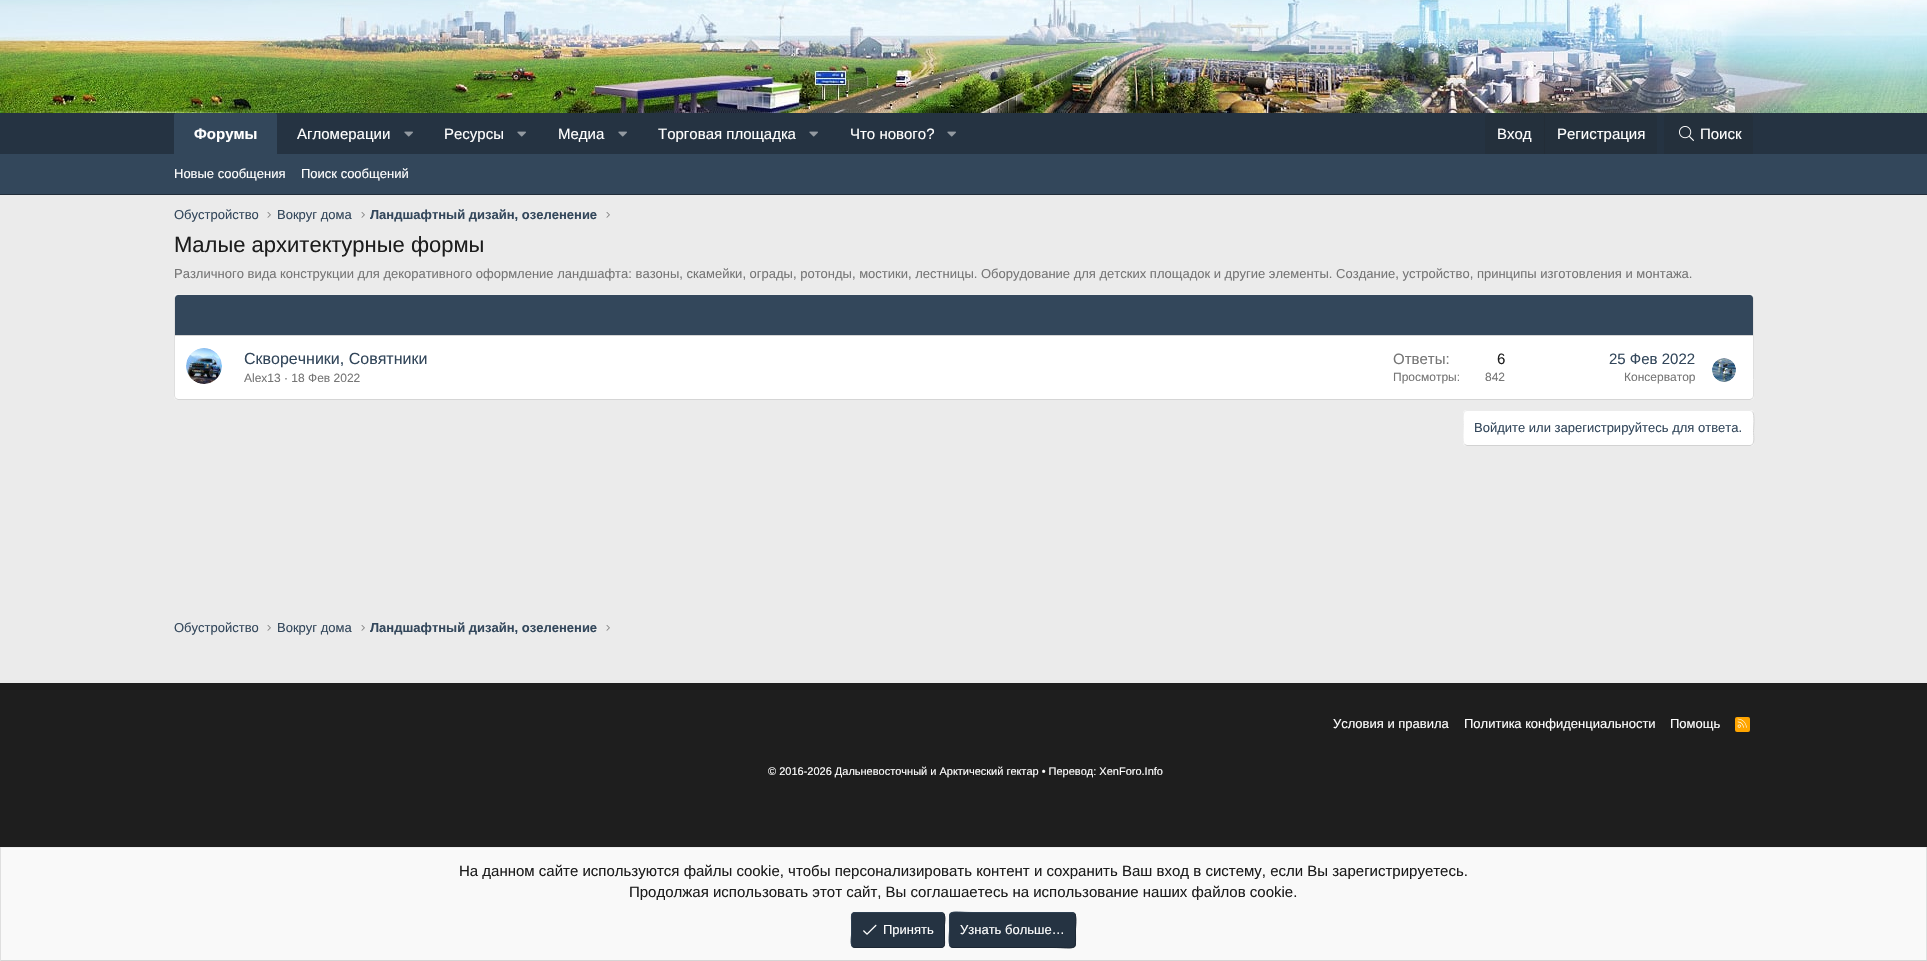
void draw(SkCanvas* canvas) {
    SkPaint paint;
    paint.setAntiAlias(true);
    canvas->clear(0xFFEBEBEB);
    canvas->drawImageRect(SkImages::DeferredFromEncodedData(SkData::MakeFromFileName("img1.png")), SkRect::MakeXYWH(0, 0, 1927, 113), SkSamplingOptions());
    paint.setColor(0xFF253342);
    canvas->drawRect(SkRect::MakeXYWH(0, 113, 1927, 41), paint);
    paint.setColor(0xFF33475B);
    canvas->drawPath(SkPathBuilder().moveTo(176, 113).lineTo(275, 113).cubicTo(276, 113, 277, 114, 277, 115).lineTo(277, 154).lineTo(174, 154).lineTo(174, 115).cubicTo(174, 114, 175, 113, 176, 113).close().detach(), paint);
    SkFont font1(fontMgr->matchFamilyStyle("Liberation Sans", SkFontStyle::Bold()), 15);
    font1.setSubpixel(true);
    paint.setColor(0xFFFFFFFF);
    canvas->drawString("Форумы", 194, 139, font1, paint);
    SkFont font2(fontMgr->matchFamilyStyle("Liberation Sans", SkFontStyle::Normal()), 15);
    font2.setSubpixel(true);
    canvas->drawString("Агломерации", 297, 139, font2, paint);
    canvas->drawImageRect(SkImages::DeferredFromEncodedData(SkData::MakeFromFileName("img2.png")), SkRect::MakeXYWH(404, 131, 9, 6), SkSamplingOptions());
    canvas->drawString("Ресурсы", 444, 139, font2, paint);
    canvas->drawImageRect(SkImages::DeferredFromEncodedData(SkData::MakeFromFileName("img2.png")), SkRect::MakeXYWH(517, 131, 9, 6), SkSamplingOptions());
    canvas->drawString("Медиа", 558, 139, font2, paint);
    canvas->drawImageRect(SkImages::DeferredFromEncodedData(SkData::MakeFromFileName("img2.png")), SkRect::MakeXYWH(618, 131, 9, 6), SkSamplingOptions());
    canvas->drawString("Торговая площадка", 658, 139, font2, paint);
    canvas->drawImageRect(SkImages::DeferredFromEncodedData(SkData::MakeFromFileName("img2.png")), SkRect::MakeXYWH(809, 131, 9, 6), SkSamplingOptions());
    canvas->drawString("Что нового?", 850, 139, font2, paint);
    canvas->drawImageRect(SkImages::DeferredFromEncodedData(SkData::MakeFromFileName("img2.png")), SkRect::MakeXYWH(947, 131, 9, 6), SkSamplingOptions());
    paint.setColor(0xFF24303C);
    canvas->drawPath(SkPathBuilder().moveTo(1489, 113).lineTo(1653, 113).cubicTo(1655, 113, 1657, 115, 1657, 117).lineTo(1657, 154).lineTo(1485, 154).lineTo(1485, 117).cubicTo(1485, 115, 1487, 113, 1489, 113).close().detach(), paint);
    paint.setColor(0xFFFFFFFF);
    canvas->drawString("Вход", 1497, 139, font2, paint);
    paint.setColor(0xFF232D37);
    canvas->drawRect(SkRect::MakeXYWH(1544, 113, 1, 41), paint);
    paint.setColor(0xFFFFFFFF);
    canvas->drawString("Регистрация", 1557, 139, font2, paint);
    paint.setColor(0xFF24303C);
    canvas->drawPath(SkPathBuilder().moveTo(1668, 113).lineTo(1749, 113).cubicTo(1751, 113, 1753, 115, 1753, 117).lineTo(1753, 154).lineTo(1664, 154).lineTo(1664, 117).cubicTo(1664, 115, 1666, 113, 1668, 113).close().detach(), paint);
    canvas->drawImageRect(SkImages::DeferredFromEncodedData(SkData::MakeFromFileName("img3.png")), SkRect::MakeXYWH(1679, 126, 15, 15), SkSamplingOptions());
    paint.setColor(0xFFFFFFFF);
    canvas->drawString("Поиск", 1700, 139, font2, paint);
    paint.setColor(0xFF33475B);
    canvas->drawRect(SkRect::MakeXYWH(0, 154, 1927, 40), paint);
    paint.setColor(0xFF212D3A);
    canvas->drawRect(SkRect::MakeXYWH(0, 194, 1927, 1), paint);
    SkFont font3(fontMgr->matchFamilyStyle("Liberation Sans", SkFontStyle::Normal()), 13);
    font3.setSubpixel(true);
    paint.setColor(0xFFFFFFFF);
    canvas->drawString("Новые сообщения", 174, 178, font3, paint);
    canvas->drawString("Поиск сообщений", 301, 178, font3, paint);
    paint.setColor(0xFF33475B);
    canvas->drawString("Обустройство", 174, 219, font3, paint);
    canvas->drawImageRect(SkImages::DeferredFromEncodedData(SkData::MakeFromFileName("img4.png")), SkRect::MakeXYWH(267, 212, 4, 6), SkSamplingOptions());
    canvas->drawString("Вокруг дома", 277, 219, font3, paint);
    canvas->drawImageRect(SkImages::DeferredFromEncodedData(SkData::MakeFromFileName("img4.png")), SkRect::MakeXYWH(361, 212, 4, 6), SkSamplingOptions());
    SkFont font4(fontMgr->matchFamilyStyle("Liberation Sans", SkFontStyle::Bold()), 13);
    font4.setSubpixel(true);
    canvas->drawString("Ландшафтный дизайн, озеленение", 370, 219, font4, paint);
    canvas->drawImageRect(SkImages::DeferredFromEncodedData(SkData::MakeFromFileName("img4.png")), SkRect::MakeXYWH(606, 212, 4, 6), SkSamplingOptions());
    SkFont font5(fontMgr->matchFamilyStyle("Liberation Sans", SkFontStyle::Normal()), 22);
    font5.setSubpixel(true);
    paint.setColor(0xFF1D1D1D);
    canvas->drawString("Малые архитектурные формы", 174, 252, font5, paint);
    paint.setColor(0xFF767676);
    canvas->drawString("Различного вида конструкции для декоративного оформление ландшафта: вазоны, скамейки, ограды, ротонды, мостики, лестницы. Оборудование для детских площадок и другие элементы. Создание, устройство, принципы изготовления и монтажа.", 174, 278, font3, paint);
    paint.setColor(0xFFFFFFFF);
    canvas->drawRoundRect(SkRect::MakeXYWH(174, 294, 1580, 106), 4, 4, paint);
    paint.setStyle(SkPaint::kStroke_Style);
    paint.setStrokeWidth(1);
    paint.setColor(0xFFEEEEEE);
    canvas->drawPath(SkPathBuilder().moveTo(175.5f, 295.5f).lineTo(178, 294.5f).lineTo(1750, 294.5f).lineTo(1752.5f, 295.5f).detach(), paint);
    paint.setColor(0xFFDFDFDF);
    canvas->drawPath(SkPathBuilder().moveTo(1752.5f, 295.5f).lineTo(1753.5f, 297.5f).lineTo(1753.5f, 379.5f).lineTo(1753.5f, 396).lineTo(1752.5f, 398.5f).detach(), paint);
    paint.setColor(0xFFD5D5D5);
    canvas->drawPath(SkPathBuilder().moveTo(1752.5f, 398.5f).lineTo(1750, 399.5f).lineTo(178, 399.5f).lineTo(175.5f, 398.5f).detach(), paint);
    paint.setColor(0xFFDFDFDF);
    canvas->drawPath(SkPathBuilder().moveTo(175.5f, 398.5f).lineTo(174.5f, 396).lineTo(174.5f, 297.5f).lineTo(175.5f, 295.5f).detach(), paint);
    paint.setStyle(SkPaint::kFill_Style);
    paint.setColor(0xFF33475B);
    canvas->drawPath(SkPathBuilder().moveTo(178, 295).lineTo(1750, 295).cubicTo(1751.5f, 295, 1753, 296.5f, 1753, 298).lineTo(1753, 336).lineTo(175, 336).lineTo(175, 298).cubicTo(175, 296.5f, 176.5f, 295, 178, 295).close().detach(), paint);
    paint.setColor(0xFFD5D5D5);
    canvas->drawRect(SkRect::MakeXYWH(175, 335, 1578, 1), paint);
    canvas->drawImageRect(SkImages::DeferredFromEncodedData(SkData::MakeFromFileName("img5.png")), SkRect::MakeXYWH(186, 348, 36, 36), SkSamplingOptions());
    SkFont font6(fontMgr->matchFamilyStyle("Liberation Sans", SkFontStyle::Normal()), 16);
    font6.setSubpixel(true);
    paint.setColor(0xFF33475B);
    canvas->drawString("Скворечники, Совятники", 244, 364, font6, paint);
    SkFont font7(fontMgr->matchFamilyStyle("Liberation Sans", SkFontStyle::Normal()), 12);
    font7.setSubpixel(true);
    paint.setColor(0xFF767676);
    canvas->drawString("Alex13 · 18 Фев 2022", 244, 382, font7, paint);
    canvas->drawString("Ответы:", 1393, 364, font2, paint);
    paint.setColor(0xFF1D1D1D);
    canvas->drawString("6", 1497, 364, font2, paint);
    paint.setColor(0xFF767676);
    canvas->drawString("Просмотры:", 1393, 381, font7, paint);
    canvas->drawString("842", 1485, 381, font7, paint);
    paint.setColor(0xFF33475B);
    canvas->drawString("25 Фев 2022", 1609, 364, font2, paint);
    paint.setColor(0xFF767676);
    canvas->drawString("Консерватор", 1624, 381, font7, paint);
    canvas->drawImageRect(SkImages::DeferredFromEncodedData(SkData::MakeFromFileName("img6.png")), SkRect::MakeXYWH(1712, 358, 24, 24), SkSamplingOptions());
    paint.setColor(0xFFFFFFFF);
    canvas->drawRoundRect(SkRect::MakeXYWH(1463, 410, 291, 36), 4, 4, paint);
    paint.setStyle(SkPaint::kStroke_Style);
    paint.setColor(0xFFD2D2D2);
    canvas->drawPath(SkPathBuilder().moveTo(1752.5f, 411.5f).cubicTo(1755, 414, 1753.5f, 429, 1753.5f, 432.5f).cubicTo(1753.5f, 435, 1755.5f, 445.5f, 1750, 445.5f).lineTo(1467, 445.5f).lineTo(1464.5f, 444.5f).detach(), paint);
    paint.setColor(0xFFECECEC);
    canvas->drawPath(SkPathBuilder().moveTo(1464.5f, 444.5f).cubicTo(1462, 442, 1463.5f, 427, 1463.5f, 423.5f).cubicTo(1463.5f, 421, 1461.5f, 410.5f, 1467, 410.5f).lineTo(1750, 410.5f).lineTo(1752.5f, 411.5f).detach(), paint);
    paint.setStyle(SkPaint::kFill_Style);
    paint.setColor(0xFF33475B);
    canvas->drawString("Войдите или зарегистрируйтесь для ответа.", 1474, 432, font3, paint);
    canvas->drawString("Обустройство", 174, 632, font3, paint);
    canvas->drawImageRect(SkImages::DeferredFromEncodedData(SkData::MakeFromFileName("img4.png")), SkRect::MakeXYWH(267, 625, 4, 6), SkSamplingOptions());
    canvas->drawString("Вокруг дома", 277, 632, font3, paint);
    canvas->drawImageRect(SkImages::DeferredFromEncodedData(SkData::MakeFromFileName("img4.png")), SkRect::MakeXYWH(361, 625, 4, 6), SkSamplingOptions());
    canvas->drawString("Ландшафтный дизайн, озеленение", 370, 632, font4, paint);
    canvas->drawImageRect(SkImages::DeferredFromEncodedData(SkData::MakeFromFileName("img4.png")), SkRect::MakeXYWH(606, 625, 4, 6), SkSamplingOptions());
    paint.setColor(0xFF1E1E1E);
    canvas->drawRect(SkRect::MakeXYWH(0, 683, 1927, 164), paint);
    paint.setColor(0xFFFFFFFF);
    canvas->drawString("Условия и правила", 1333, 728, font3, paint);
    canvas->drawString("Политика конфиденциальности", 1464, 728, font3, paint);
    canvas->drawString("Помощь", 1670, 728, font3, paint);
    paint.setColor(0xFFFFA500);
    canvas->drawRoundRect(SkRect::MakeXYWH(1735, 717, 15, 15), 2, 2, paint);
    canvas->drawImageRect(SkImages::DeferredFromEncodedData(SkData::MakeFromFileName("img7.png")), SkRect::MakeXYWH(1737, 718, 10, 10), SkSamplingOptions());
    SkFont font8(fontMgr->matchFamilyStyle("Liberation Sans", SkFontStyle::Normal()), 11);
    font8.setSubpixel(true);
    paint.setColor(0xFFFFFFFF);
    canvas->drawString("© 2016-2026 Дальневосточный и Арктический гектар • Перевод: XenForo.Info", 768, 775, font8, paint);
    paint.setColor(0xFFF9F9F9);
    canvas->drawRect(SkRect::MakeXYWH(1, 848, 1925, 112), paint);
    paint.setColor(0xFFEEEEEE);
    canvas->drawRect(SkRect::MakeXYWH(0, 847, 1927, 1), paint);
    paint.setColor(0xFFDFDFDF);
    canvas->drawRect(SkRect::MakeXYWH(1926, 847, 1, 114), paint);
    paint.setColor(0xFFD5D5D5);
    canvas->drawRect(SkRect::MakeXYWH(0, 960, 1927, 1), paint);
    paint.setColor(0xFFDFDFDF);
    canvas->drawRect(SkRect::MakeXYWH(0, 847, 1, 114), paint);
    paint.setColor(0xFF1D1D1D);
    canvas->drawString("На данном сайте используются файлы cookie, чтобы персонализировать контент и сохранить Ваш вход в систему, если Вы зарегистрируетесь.", 459, 876, font2, paint);
    canvas->drawString("Продолжая использовать этот сайт, Вы соглашаетесь на использование наших файлов cookie.", 629, 897, font2, paint);
    paint.setColor(0xFF253342);
    canvas->drawRoundRect(SkRect::MakeXYWH(851, 912, 94, 36), 4, 4, paint);
    paint.setStyle(SkPaint::kStroke_Style);
    paint.setColor(0xFF1C2632);
    canvas->drawPath(SkPathBuilder().moveTo(943.5f, 913.5f).cubicTo(946, 916, 944.5f, 923, 944.5f, 925.5f).lineTo(944.5f, 939.5f).cubicTo(944.5f, 942, 945.5f, 947.5f, 941, 947.5f).lineTo(855, 947.5f).lineTo(852.5f, 946.5f).detach(), paint);
    paint.setColor(0xFF2E4052);
    canvas->drawPath(SkPathBuilder().moveTo(852.5f, 946.5f).cubicTo(850, 944, 851.5f, 937, 851.5f, 934.5f).lineTo(851.5f, 920.5f).cubicTo(851.5f, 918, 850.5f, 912.5f, 855, 912.5f).lineTo(941, 912.5f).lineTo(943.5f, 913.5f).detach(), paint);
    canvas->drawImageRect(SkImages::DeferredFromEncodedData(SkData::MakeFromFileName("img8.png")), SkRect::MakeXYWH(863, 924, 14, 11), SkSamplingOptions());
    paint.setStyle(SkPaint::kFill_Style);
    paint.setColor(0xFFFFFFFF);
    canvas->drawString("Принять", 883, 934, font3, paint);
    paint.setColor(0xFF253342);
    canvas->drawRoundRect(SkRect::MakeXYWH(949, 912, 127, 36), 4, 4, paint);
    paint.setStyle(SkPaint::kStroke_Style);
    paint.setColor(0xFF1C2632);
    canvas->drawPath(SkPathBuilder().moveTo(1074.5f, 913.5f).cubicTo(1077, 916, 1075.5f, 927, 1075.5f, 930).cubicTo(1075.5f, 952.5f, 1078, 947.5f, 1052, 947.5f).lineTo(953, 947.5f).lineTo(950.5f, 946.5f).detach(), paint);
    paint.setColor(0xFF2E4052);
    canvas->drawPath(SkPathBuilder().moveTo(950.5f, 946.5f).cubicTo(948, 944, 949.5f, 933, 949.5f, 930).cubicTo(949.5f, 907.5f, 947, 912.5f, 973, 912.5f).lineTo(1072, 912.5f).lineTo(1074.5f, 913.5f).detach(), paint);
    paint.setStyle(SkPaint::kFill_Style);
    paint.setColor(0xFFFFFFFF);
    canvas->drawString("Узнать больше…", 960, 934, font3, paint);
}
